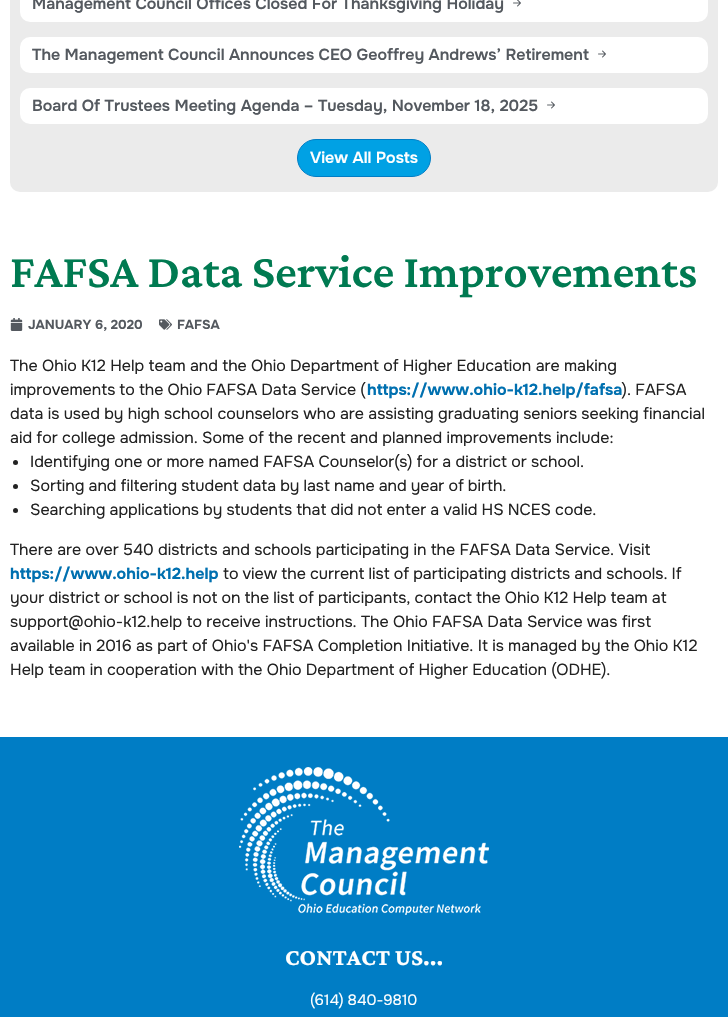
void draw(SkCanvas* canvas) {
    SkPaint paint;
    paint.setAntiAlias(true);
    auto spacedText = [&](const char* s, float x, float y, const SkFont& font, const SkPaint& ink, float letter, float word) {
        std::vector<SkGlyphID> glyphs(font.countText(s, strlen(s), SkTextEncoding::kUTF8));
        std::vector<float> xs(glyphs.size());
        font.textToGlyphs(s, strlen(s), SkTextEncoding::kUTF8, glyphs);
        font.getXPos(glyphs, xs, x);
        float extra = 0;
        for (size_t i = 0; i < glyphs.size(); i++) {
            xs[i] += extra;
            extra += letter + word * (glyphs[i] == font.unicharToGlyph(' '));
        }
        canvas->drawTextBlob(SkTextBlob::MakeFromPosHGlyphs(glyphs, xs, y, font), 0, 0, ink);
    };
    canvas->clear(0xFFFFFFFF);
    paint.setColor(0xFFEBEBEB);
    canvas->drawRoundRect(SkRect::MakeXYWH(10, -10, 708, 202), 10, 10, paint);
    paint.setColor(0xFFFFFFFF);
    canvas->drawRoundRect(SkRect::MakeXYWH(20, -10, 688, 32), 10, 10, paint);
    SkFont font1(fontMgr->matchFamilyStyle("Onest", SkFontStyle(600, SkFontStyle::kNormal_Width, SkFontStyle::kUpright_Slant)), 16);
    font1.setSubpixel(true);
    paint.setColor(0xFF54595F);
    canvas->drawString("Management Council Offices Closed For Thanksgiving Holiday", 32, 9, font1, paint);
    canvas->drawImageRect(SkImages::DeferredFromEncodedData(SkData::MakeFromFileName("img1.png")), SkRect::MakeXYWH(513, 0, 8, 7), SkSamplingOptions());
    paint.setColor(0xFFFFFFFF);
    canvas->drawRoundRect(SkRect::MakeXYWH(20, 37, 688, 36), 10, 10, paint);
    paint.setColor(0xFF54595F);
    canvas->drawString("The Management Council Announces CEO Geoffrey Andrews’ Retirement", 32, 60, font1, paint);
    canvas->drawImageRect(SkImages::DeferredFromEncodedData(SkData::MakeFromFileName("img2.png")), SkRect::MakeXYWH(598, 50, 8, 8), SkSamplingOptions());
    paint.setColor(0xFFFFFFFF);
    canvas->drawRoundRect(SkRect::MakeXYWH(20, 88, 688, 36), 10, 10, paint);
    paint.setColor(0xFF54595F);
    canvas->drawString("Board Of Trustees Meeting Agenda – Tuesday, November 18, 2025", 32, 111, font1, paint);
    canvas->drawImageRect(SkImages::DeferredFromEncodedData(SkData::MakeFromFileName("img2.png")), SkRect::MakeXYWH(547, 101, 8, 8), SkSamplingOptions());
    paint.setColor(0xFF00A1E4);
    canvas->drawRoundRect(SkRect::MakeXYWH(297.5f, 139.5f, 133, 37), 18.5f, 18.5f, paint);
    paint.setStyle(SkPaint::kStroke_Style);
    paint.setStrokeWidth(1);
    paint.setColor(0xFF007DC5);
    canvas->drawRoundRect(SkRect::MakeXYWH(297.5f, 139.5f, 133, 37), 18.5f, 18.5f, paint);
    paint.setStyle(SkPaint::kFill_Style);
    paint.setColor(0xFFFFFFFF);
    canvas->drawString("View All Posts", 310, 163, font1, paint);
    SkFont font2(fontMgr->matchFamilyStyle("Crimson Pro", SkFontStyle(600, SkFontStyle::kNormal_Width, SkFontStyle::kUpright_Slant)), 48);
    font2.setSubpixel(true);
    paint.setColor(0xFF007A51);
    canvas->drawString("FAFSA Data Service Improvements", 10, 287, font2, paint);
    canvas->drawImageRect(SkImages::DeferredFromEncodedData(SkData::MakeFromFileName("img3.png")), SkRect::MakeXYWH(10, 318, 13, 13), SkSamplingOptions());
    SkFont font3(fontMgr->matchFamilyStyle("Onest", SkFontStyle::Bold()), 13);
    font3.setSubpixel(true);
    paint.setColor(0xFF54595F);
    canvas->drawString("JANUARY 6, 2020", 28, 329, font3, paint);
    canvas->drawImageRect(SkImages::DeferredFromEncodedData(SkData::MakeFromFileName("img4.png")), SkRect::MakeXYWH(159, 319, 13, 11), SkSamplingOptions());
    canvas->drawString("FAFSA", 177, 329, font3, paint);
    SkFont font4(fontMgr->matchFamilyStyle("Onest", SkFontStyle::Normal()), 16);
    font4.setSubpixel(true);
    paint.setColor(0xFF222222);
    canvas->drawString("The Ohio K12 Help team and the Ohio Department of Higher Education are making", 10, 371, font4, paint);
    spacedText("improvements to the Ohio FAFSA Data Service (", 10, 395, font4, paint, 0, -0.25f);
    SkFont font5(fontMgr->matchFamilyStyle("Onest", SkFontStyle::Bold()), 16);
    font5.setSubpixel(true);
    paint.setColor(0xFF0070B0);
    canvas->drawString("https://www.ohio-k12.help/fafsa", 367, 395, font5, paint);
    paint.setColor(0xFF222222);
    canvas->drawString("). FAFSA", 622, 395, font4, paint);
    canvas->drawString("data is used by high school counselors who are assisting graduating seniors seeking financial", 10, 419, font4, paint);
    canvas->drawString("aid for college admission. Some of the recent and planned improvements include:", 10, 443, font4, paint);
    canvas->drawCircle(15.5f, 462.5f, 2.5f, paint);
    canvas->drawString("Identifying one or more named FAFSA Counselor(s) for a district or school.", 30, 467, font4, paint);
    canvas->drawCircle(15.5f, 486.5f, 2.5f, paint);
    spacedText("Sorting and filtering student data by last name and year of birth.", 30, 491, font4, paint, 0, -0.25f);
    canvas->drawCircle(15.5f, 510.5f, 2.5f, paint);
    spacedText("Searching applications by students that did not enter a valid HS NCES code.", 30, 515, font4, paint, 0, -0.2f);
    canvas->drawString("There are over 540 districts and schools participating in the FAFSA Data Service. Visit", 10, 555, font4, paint);
    paint.setColor(0xFF0070B0);
    canvas->drawString("https://www.ohio-k12.help", 10, 579, font5, paint);
    paint.setColor(0xFF222222);
    spacedText("to view the current list of participating districts and schools. If", 223, 579, font4, paint, 0, -0.25f);
    spacedText("your district or school is not on the list of participants, contact the Ohio K12 Help team at", 10, 603, font4, paint, 0, -0.2f);
    canvas->drawString("support@ohio-k12.help to receive instructions. The Ohio FAFSA Data Service was first", 10, 627, font4, paint);
    canvas->drawString("available in 2016 as part of Ohio's FAFSA Completion Initiative. It is managed by the Ohio K12", 10, 651, font4, paint);
    canvas->drawString("Help team in cooperation with the Ohio Department of Higher Education (ODHE).", 10, 675, font4, paint);
    paint.setColor(0xFF007DC5);
    canvas->drawRect(SkRect::MakeXYWH(0, 737, 728, 280), paint);
    canvas->drawImageRect(SkImages::DeferredFromEncodedData(SkData::MakeFromFileName("img5.png")), SkRect::MakeXYWH(239, 767, 250, 148), SkSamplingOptions());
    SkFont font6(fontMgr->matchFamilyStyle("Crimson Pro", SkFontStyle::Bold()), 24);
    font6.setSubpixel(true);
    paint.setColor(0xFFFFFFFF);
    canvas->drawString("CONTACT US...", 285, 965, font6, paint);
    SkFont font7(fontMgr->matchFamilyStyle("Onest", SkFontStyle::Normal()), 15);
    font7.setSubpixel(true);
    canvas->drawString("(614) 840-9810", 310, 1005, font7, paint);
}
